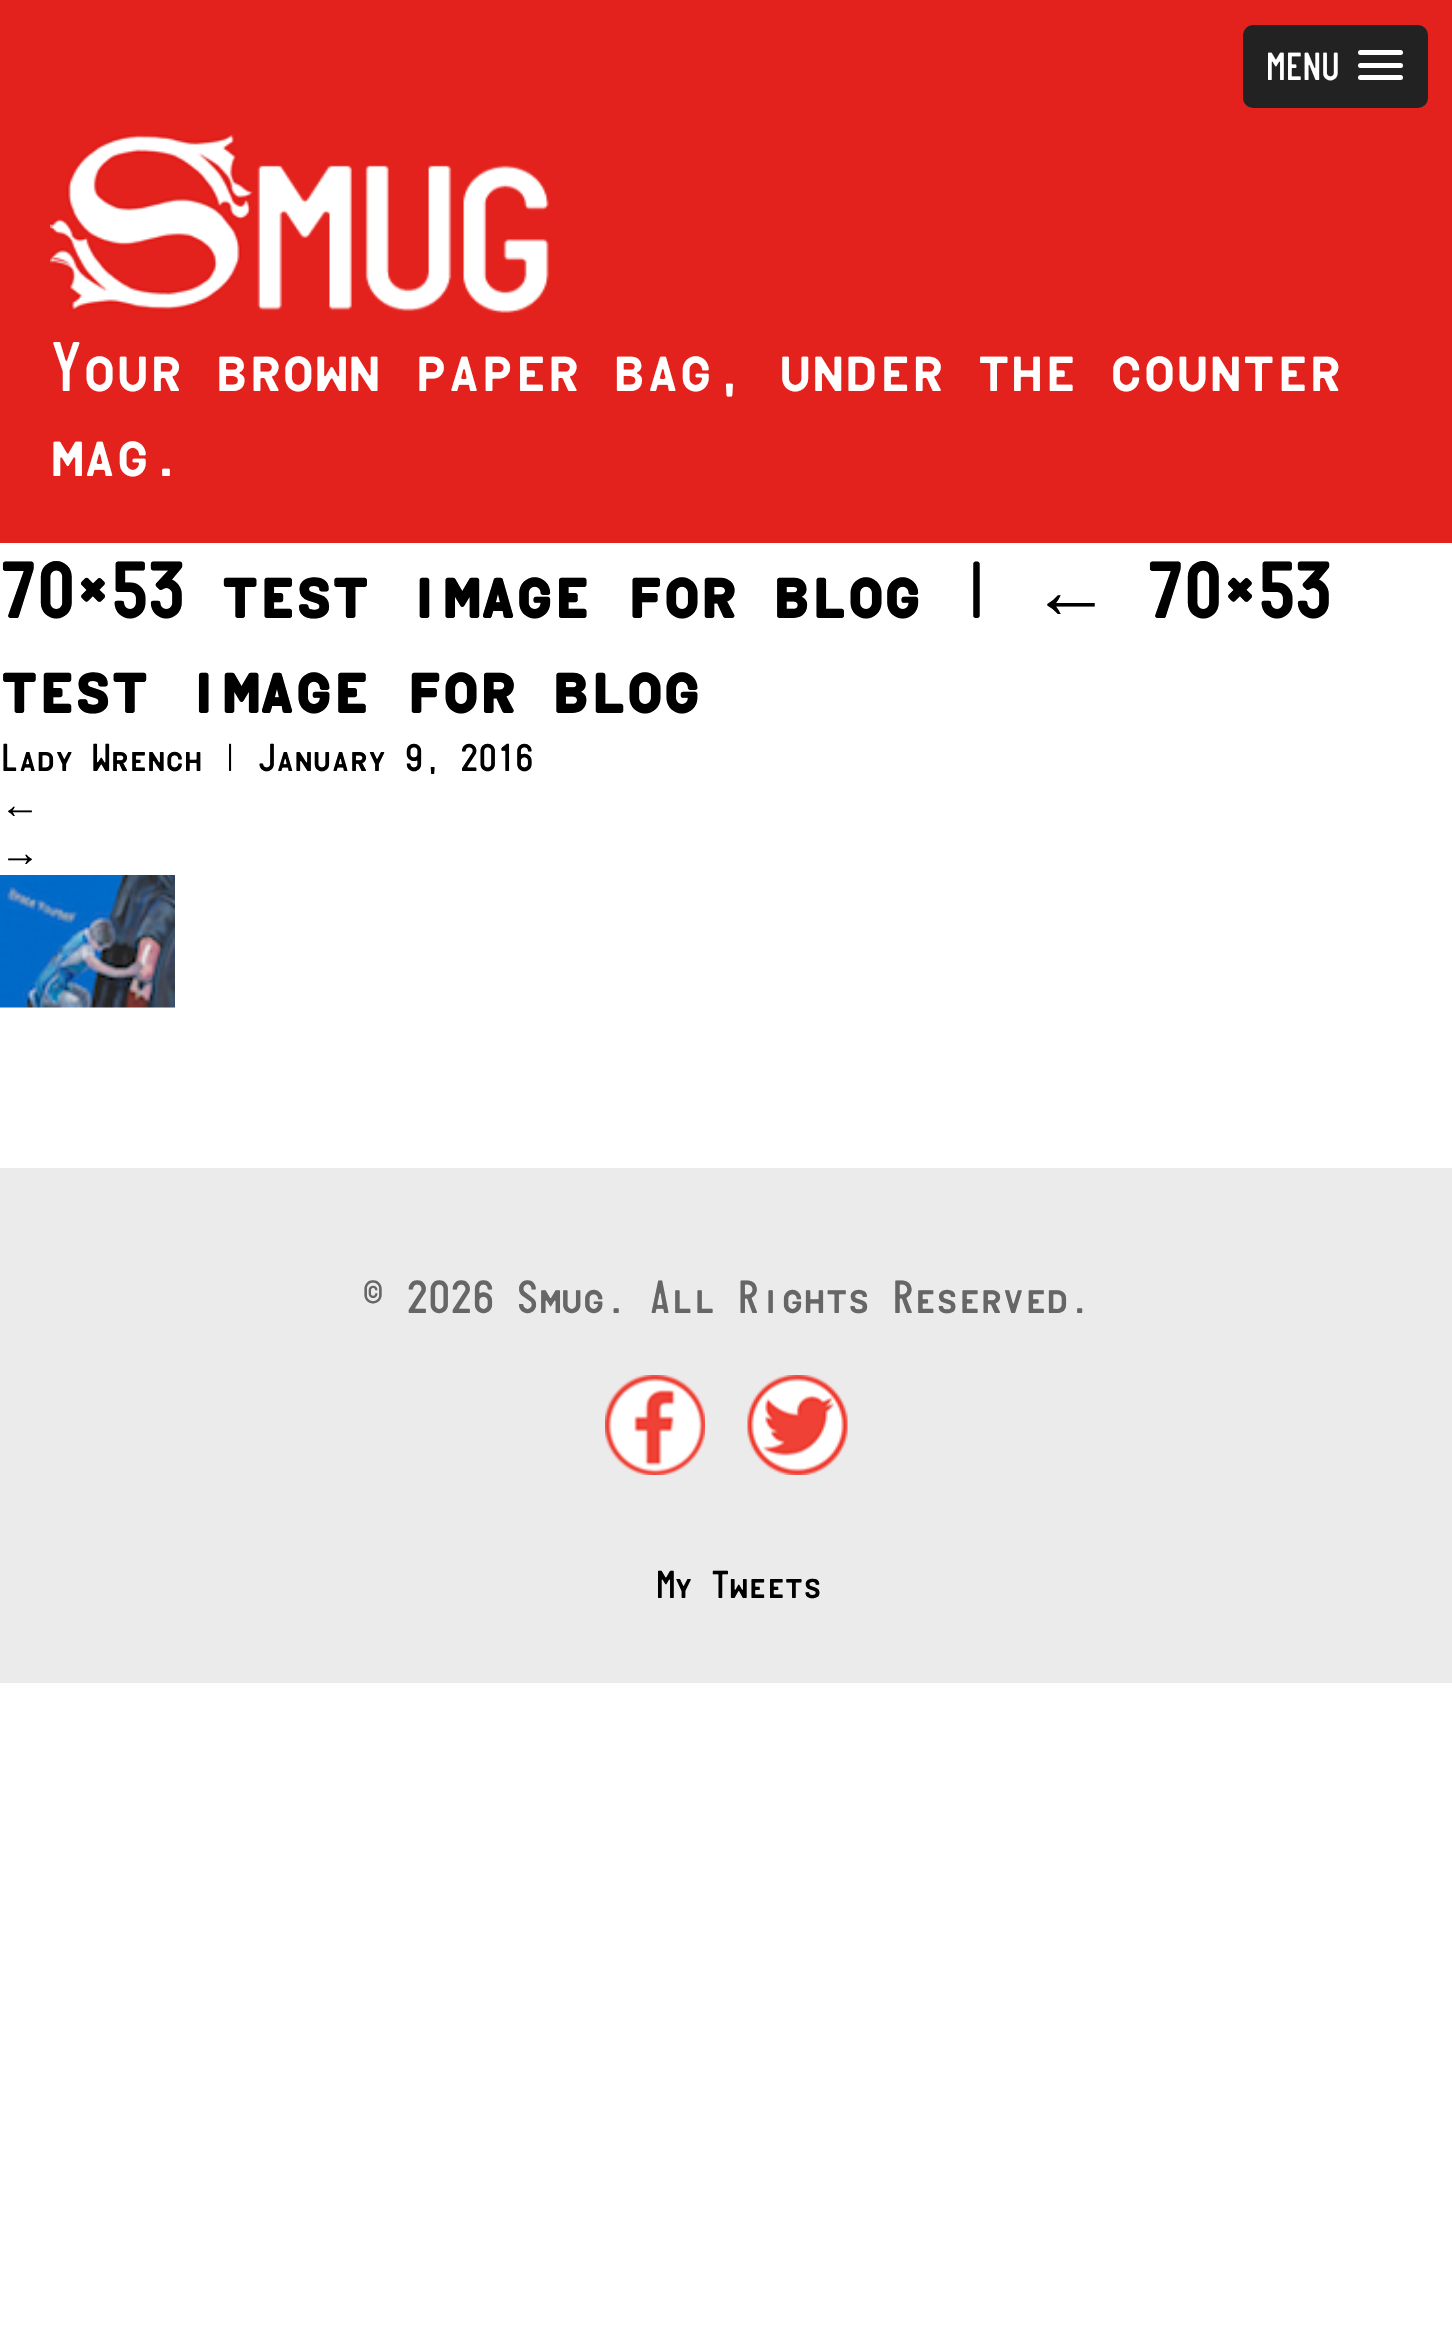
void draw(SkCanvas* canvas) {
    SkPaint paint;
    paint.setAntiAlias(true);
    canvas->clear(0xFFFFFFFF);
    paint.setColor(0xFFE3221D);
    canvas->drawRect(SkRect::MakeXYWH(0, 0, 1452, 543), paint);
    paint.setColor(0xFF222222);
    canvas->drawRoundRect(SkRect::MakeXYWH(1243, 25, 185, 83), 10, 10, paint);
    SkFont font1(fontMgr->matchFamilyStyle("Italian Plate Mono", SkFontStyle::Normal()), 40);
    font1.setSubpixel(true);
    paint.setColor(0xFFFFFFFF);
    canvas->drawString("MENU", 1266, 80, font1, paint);
    canvas->drawRoundRect(SkRect::MakeXYWH(1358, 50, 45, 5), 2.5f, 2.5f, paint);
    canvas->drawRoundRect(SkRect::MakeXYWH(1358, 63, 45, 5), 2.5f, 2.5f, paint);
    canvas->drawRoundRect(SkRect::MakeXYWH(1358, 75, 45, 5), 2.5f, 2.5f, paint);
    canvas->drawImageRect(SkImages::DeferredFromEncodedData(SkData::MakeFromFileName("img1.png")), SkRect::MakeXYWH(50, 135, 499, 178), SkSamplingOptions());
    SkFont font2(fontMgr->matchFamilyStyle("Italian Plate Mono", SkFontStyle::Normal()), 72);
    font2.setSubpixel(true);
    canvas->drawString("Your brown paper bag, under the counter", 50, 391, font2, paint);
    canvas->drawString("mag.", 50, 476, font2, paint);
    SkFont font3(fontMgr->matchFamilyStyle("Italian Plate Mono", SkFontStyle::Bold()), 80);
    font3.setSubpixel(true);
    paint.setColor(0xFF000000);
    canvas->drawString("70×53 test image for blog |", 0, 618, font3, paint);
    SkFont font4(fontMgr->matchFamilyStyle("Liberation Sans", SkFontStyle::Bold()), 80);
    font4.setSubpixel(true);
    canvas->drawString("←", 1031, 618, font4, paint);
    canvas->drawString("70×53", 1147, 618, font3, paint);
    canvas->drawString("test image for blog", 0, 713, font3, paint);
    canvas->drawString("Lady Wrench | January 9, 2016", 0, 771, font1, paint);
    SkFont font5(fontMgr->matchFamilyStyle("Liberation Sans", SkFontStyle::Normal()), 40);
    font5.setSubpixel(true);
    canvas->drawString("←", 0, 818, font5, paint);
    canvas->drawString("→", 0, 866, font5, paint);
    canvas->drawImageRect(SkImages::DeferredFromEncodedData(SkData::MakeFromFileName("img2.png")), SkRect::MakeXYWH(0, 875, 175, 133), SkSamplingOptions());
    paint.setColor(0xFFEBEBEB);
    canvas->drawRect(SkRect::MakeXYWH(0, 1168, 1452, 515), paint);
    SkFont font6(fontMgr->matchFamilyStyle("Italian Plate Mono", SkFontStyle::Normal()), 48);
    font6.setSubpixel(true);
    paint.setColor(0xFF666666);
    canvas->drawString("© 2026 Smug. All Rights Reserved.", 362, 1313, font6, paint);
    canvas->drawImageRect(SkImages::DeferredFromEncodedData(SkData::MakeFromFileName("img3.png")), SkRect::MakeXYWH(605, 1375, 100, 100), SkSamplingOptions());
    canvas->drawImageRect(SkImages::DeferredFromEncodedData(SkData::MakeFromFileName("img4.png")), SkRect::MakeXYWH(747, 1375, 101, 100), SkSamplingOptions());
    paint.setColor(0xFF000000);
    canvas->drawString("My Tweets", 656, 1598, font1, paint);
}
